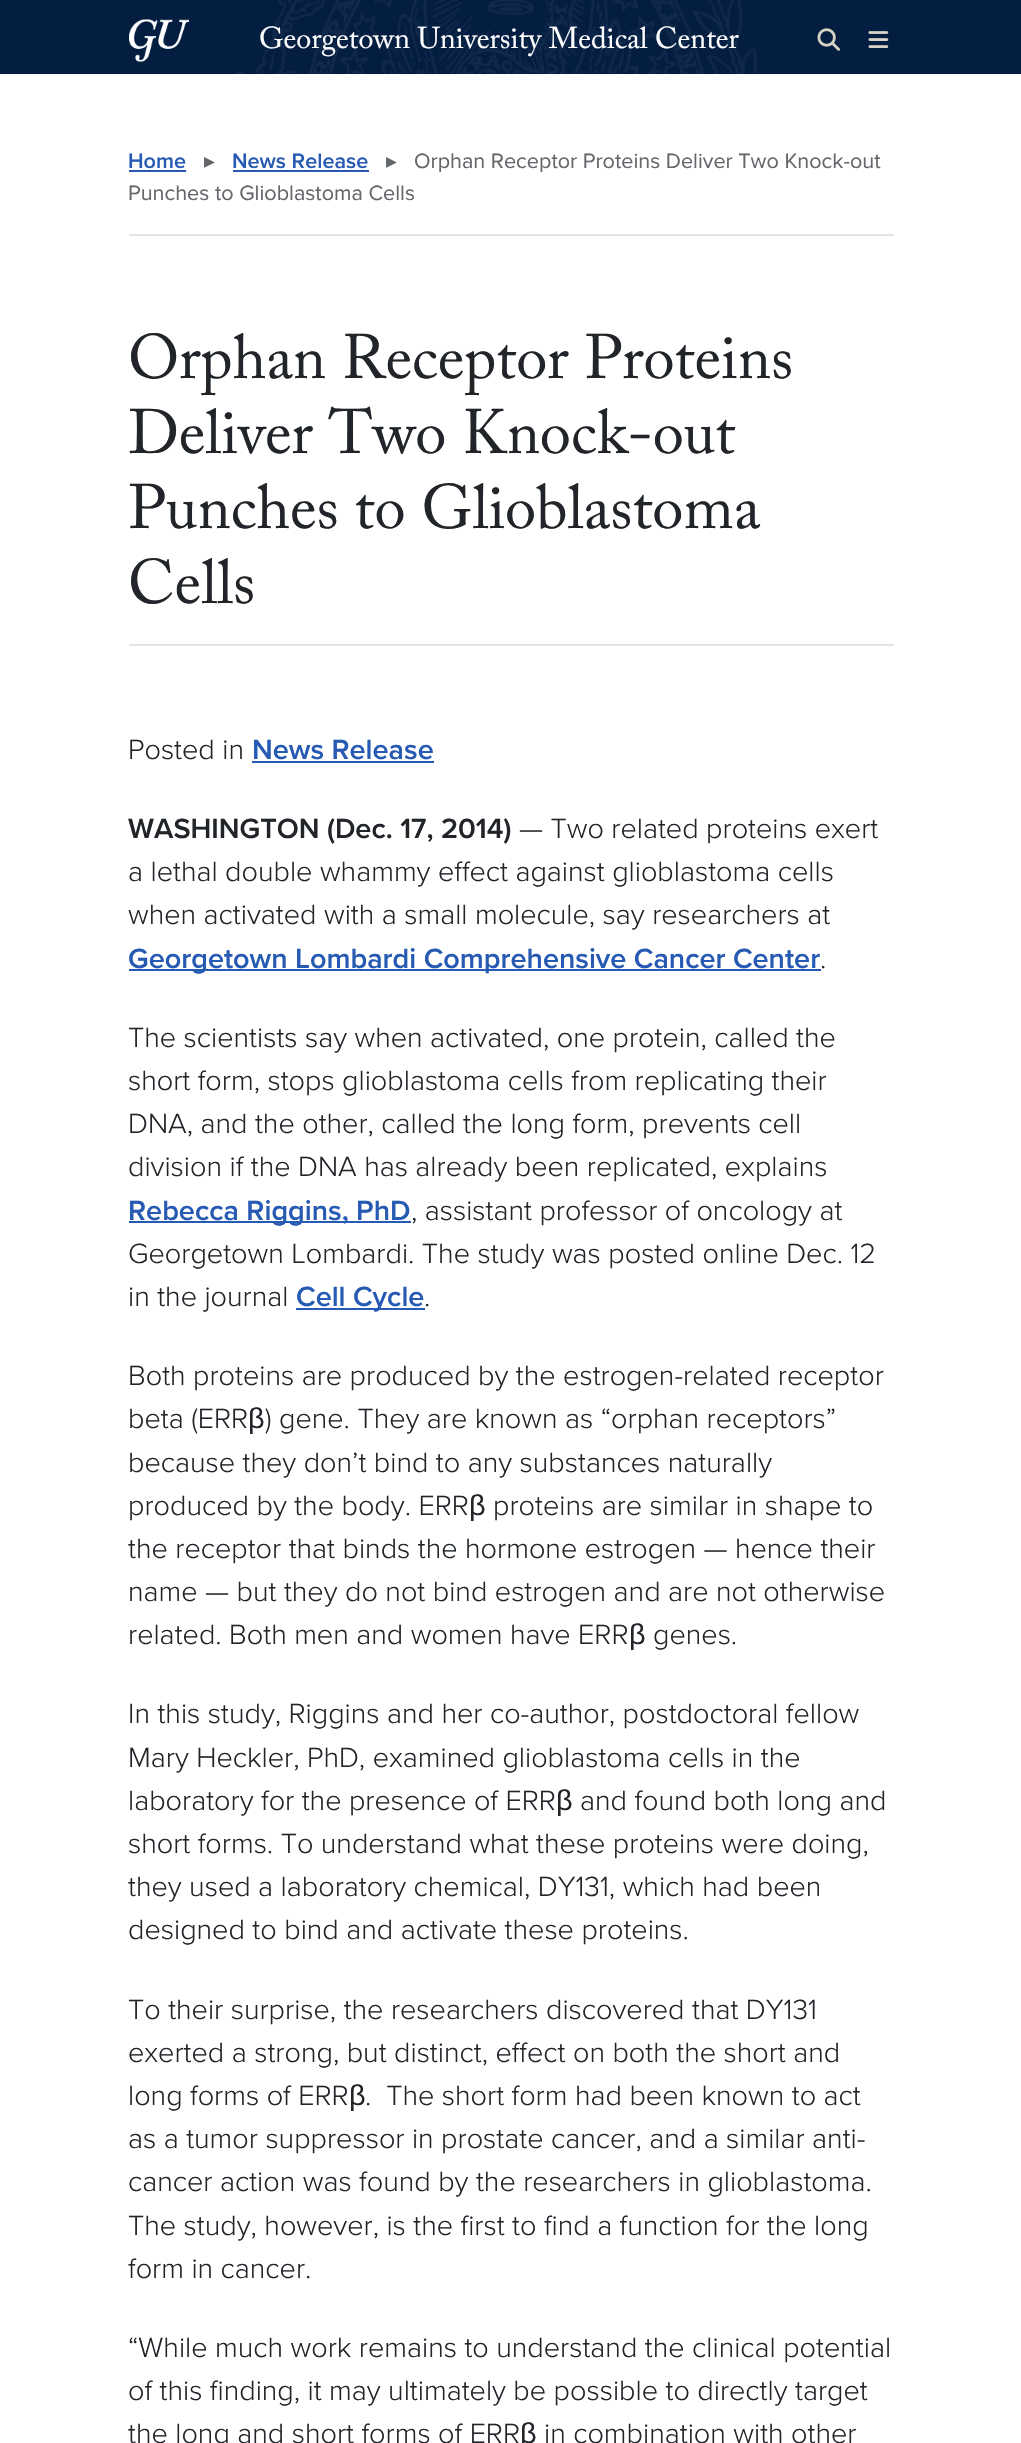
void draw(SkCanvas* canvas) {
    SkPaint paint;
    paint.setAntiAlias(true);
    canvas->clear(0xFFFFFFFF);
    paint.setColor(0xFF041E42);
    canvas->drawRect(SkRect::MakeXYWH(0, 0, 1021, 74), paint);
    canvas->drawImageRect(SkImages::DeferredFromEncodedData(SkData::MakeFromFileName("img1.png")), SkRect::MakeXYWH(237, 0, 520, 74), SkSamplingOptions());
    canvas->drawImageRect(SkImages::DeferredFromEncodedData(SkData::MakeFromFileName("img2.png")), SkRect::MakeXYWH(129, 19, 60, 43), SkSamplingOptions());
    SkFont font1(fontMgr->matchFamilyStyle("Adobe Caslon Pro", SkFontStyle::Normal()), 30);
    font1.setSubpixel(true);
    paint.setColor(0xFFFFFFFF);
    canvas->drawString("Georgetown University Medical Center", 259, 48, font1, paint);
    canvas->drawImageRect(SkImages::DeferredFromEncodedData(SkData::MakeFromFileName("img3.png")), SkRect::MakeXYWH(817, 28, 23, 23), SkSamplingOptions());
    canvas->drawImageRect(SkImages::DeferredFromEncodedData(SkData::MakeFromFileName("img4.png")), SkRect::MakeXYWH(868, 31, 21, 17), SkSamplingOptions());
    paint.setColor(0xFFE4E4E4);
    canvas->drawRect(SkRect::MakeXYWH(129, 234, 765, 2), paint);
    SkFont font2(fontMgr->matchFamilyStyle("Proxima Nova", SkFontStyle(600, SkFontStyle::kNormal_Width, SkFontStyle::kUpright_Slant)), 21.6f);
    font2.setSubpixel(true);
    paint.setColor(0xFF265AB3);
    canvas->drawString("Home", 128, 168, font2, paint);
    canvas->drawRect(SkRect::MakeXYWH(129, 170, 57, 2), paint);
    SkFont font3(fontMgr->matchFamilyStyle("DejaVu Sans", SkFontStyle::Normal()), 21.6f);
    font3.setSubpixel(true);
    paint.setColor(0xFF63666A);
    canvas->drawString("▸", 204, 168, font3, paint);
    paint.setColor(0xFF265AB3);
    canvas->drawString("News Release", 232, 168, font2, paint);
    canvas->drawRect(SkRect::MakeXYWH(233, 170, 136, 2), paint);
    paint.setColor(0xFF63666A);
    canvas->drawString("▸", 386, 168, font3, paint);
    SkFont font4(fontMgr->matchFamilyStyle("Proxima Nova", SkFontStyle::Normal()), 21.6f);
    font4.setSubpixel(true);
    canvas->drawString("Orphan Receptor Proteins Deliver Two Knock-out", 414, 168, font4, paint);
    canvas->drawString("Punches to Glioblastoma Cells", 128, 200, font4, paint);
    SkFont font5(fontMgr->matchFamilyStyle("Adobe Caslon Pro", SkFontStyle::Normal()), 62.4f);
    font5.setSubpixel(true);
    paint.setColor(0xFF212529);
    canvas->drawString("Orphan Receptor Proteins", 128, 378, font5, paint);
    canvas->drawString("Deliver Two Knock-out", 128, 453, font5, paint);
    canvas->drawString("Punches to Glioblastoma", 128, 528, font5, paint);
    canvas->drawString("Cells", 128, 603, font5, paint);
    paint.setColor(0xFFE4E4E4);
    canvas->drawRect(SkRect::MakeXYWH(129, 644, 765, 2), paint);
    SkFont font6(fontMgr->matchFamilyStyle("Proxima Nova", SkFontStyle(300, SkFontStyle::kNormal_Width, SkFontStyle::kUpright_Slant)), 28.8f);
    font6.setSubpixel(true);
    paint.setColor(0xFF212529);
    canvas->drawString("Posted in", 128, 759, font6, paint);
    SkFont font7(fontMgr->matchFamilyStyle("Proxima Nova", SkFontStyle(600, SkFontStyle::kNormal_Width, SkFontStyle::kUpright_Slant)), 28.8f);
    font7.setSubpixel(true);
    paint.setColor(0xFF265AB3);
    canvas->drawString("News Release", 252, 759, font7, paint);
    canvas->drawRect(SkRect::MakeXYWH(252, 761, 182, 2), paint);
    paint.setColor(0xFF212529);
    canvas->drawString("WASHINGTON (Dec. 17, 2014)", 128, 838, font7, paint);
    canvas->drawString("— Two related proteins exert", 519, 838, font6, paint);
    canvas->drawString("a lethal double whammy effect against glioblastoma cells", 128, 881, font6, paint);
    canvas->drawString("when activated with a small molecule, say researchers at", 128, 924, font6, paint);
    paint.setColor(0xFF265AB3);
    canvas->drawRect(SkRect::MakeXYWH(129, 969, 692, 2), paint);
    canvas->drawString("Georgetown Lombardi Comprehensive Cancer Center", 128, 968, font7, paint);
    paint.setColor(0xFF212529);
    canvas->drawString(".", 820, 968, font6, paint);
    canvas->drawString("The scientists say when activated, one protein, called the", 128, 1047, font6, paint);
    canvas->drawString("short form, stops glioblastoma cells from replicating their", 128, 1090, font6, paint);
    canvas->drawString("DNA, and the other, called the long form, prevents cell", 128, 1133, font6, paint);
    canvas->drawString("division if the DNA has already been replicated, explains", 128, 1176, font6, paint);
    paint.setColor(0xFF265AB3);
    canvas->drawRect(SkRect::MakeXYWH(129, 1221, 282, 2), paint);
    canvas->drawString("Rebecca Riggins, PhD", 128, 1220, font7, paint);
    paint.setColor(0xFF212529);
    canvas->drawString(", assistant professor of oncology at", 411, 1220, font6, paint);
    canvas->drawString("Georgetown Lombardi. The study was posted online Dec. 12", 128, 1263, font6, paint);
    canvas->drawString("in the journal", 128, 1306, font6, paint);
    paint.setColor(0xFF265AB3);
    canvas->drawRect(SkRect::MakeXYWH(296, 1308, 129, 2), paint);
    canvas->drawString("Cell Cycle", 296, 1306, font7, paint);
    paint.setColor(0xFF212529);
    canvas->drawString(".", 424, 1306, font6, paint);
    canvas->drawString("Both proteins are produced by the estrogen-related receptor", 128, 1385, font6, paint);
    canvas->drawString("beta (ERR", 128, 1428, font6, paint);
    SkFont font8(fontMgr->matchFamilyStyle("Liberation Sans", SkFontStyle::Normal()), 28.8f);
    font8.setSubpixel(true);
    canvas->drawString("β", 248, 1428, font8, paint);
    canvas->drawString(") gene. They are known as “orphan receptors”", 265, 1428, font6, paint);
    canvas->drawString("because they don’t bind to any substances naturally", 128, 1472, font6, paint);
    canvas->drawString("produced by the body. ERR", 128, 1515, font6, paint);
    canvas->drawString("β", 469, 1515, font8, paint);
    canvas->drawString("proteins are similar in shape to", 493, 1515, font6, paint);
    canvas->drawString("the receptor that binds the hormone estrogen — hence their", 128, 1558, font6, paint);
    canvas->drawString("name — but they do not bind estrogen and are not otherwise", 128, 1601, font6, paint);
    canvas->drawString("related. Both men and women have ERR", 128, 1644, font6, paint);
    canvas->drawString("β", 629, 1644, font8, paint);
    canvas->drawString("genes.", 653, 1644, font6, paint);
    canvas->drawString("In this study, Riggins and her co-author, postdoctoral fellow", 128, 1723, font6, paint);
    canvas->drawString("Mary Heckler, PhD, examined glioblastoma cells in the", 128, 1767, font6, paint);
    canvas->drawString("laboratory for the presence of ERR", 128, 1810, font6, paint);
    canvas->drawString("β", 556, 1810, font8, paint);
    canvas->drawString("and found both long and", 580, 1810, font6, paint);
    canvas->drawString("short forms. To understand what these proteins were doing,", 128, 1853, font6, paint);
    canvas->drawString("they used a laboratory chemical, DY131, which had been", 128, 1896, font6, paint);
    canvas->drawString("designed to bind and activate these proteins.", 128, 1939, font6, paint);
    canvas->drawString("To their surprise, the researchers discovered that DY131", 128, 2019, font6, paint);
    canvas->drawString("exerted a strong, but distinct, effect on both the short and", 128, 2062, font6, paint);
    canvas->drawString("long forms of ERR", 128, 2105, font6, paint);
    canvas->drawString("β", 349, 2105, font8, paint);
    canvas->drawString(".  The short form had been known to act", 365, 2105, font6, paint);
    canvas->drawString("as a tumor suppressor in prostate cancer, and a similar anti-", 128, 2148, font6, paint);
    canvas->drawString("cancer action was found by the researchers in glioblastoma.", 128, 2191, font6, paint);
    canvas->drawString("The study, however, is the first to find a function for the long", 128, 2235, font6, paint);
    canvas->drawString("form in cancer.", 128, 2278, font6, paint);
    canvas->drawString("“While much work remains to understand the clinical potential", 128, 2357, font6, paint);
    canvas->drawString("of this finding, it may ultimately be possible to directly target", 128, 2400, font6, paint);
    canvas->drawString("the long and short forms of ERR", 128, 2443, font6, paint);
    canvas->drawString("β", 520, 2443, font8, paint);
    canvas->drawString("in combination with other", 544, 2443, font6, paint);
}
